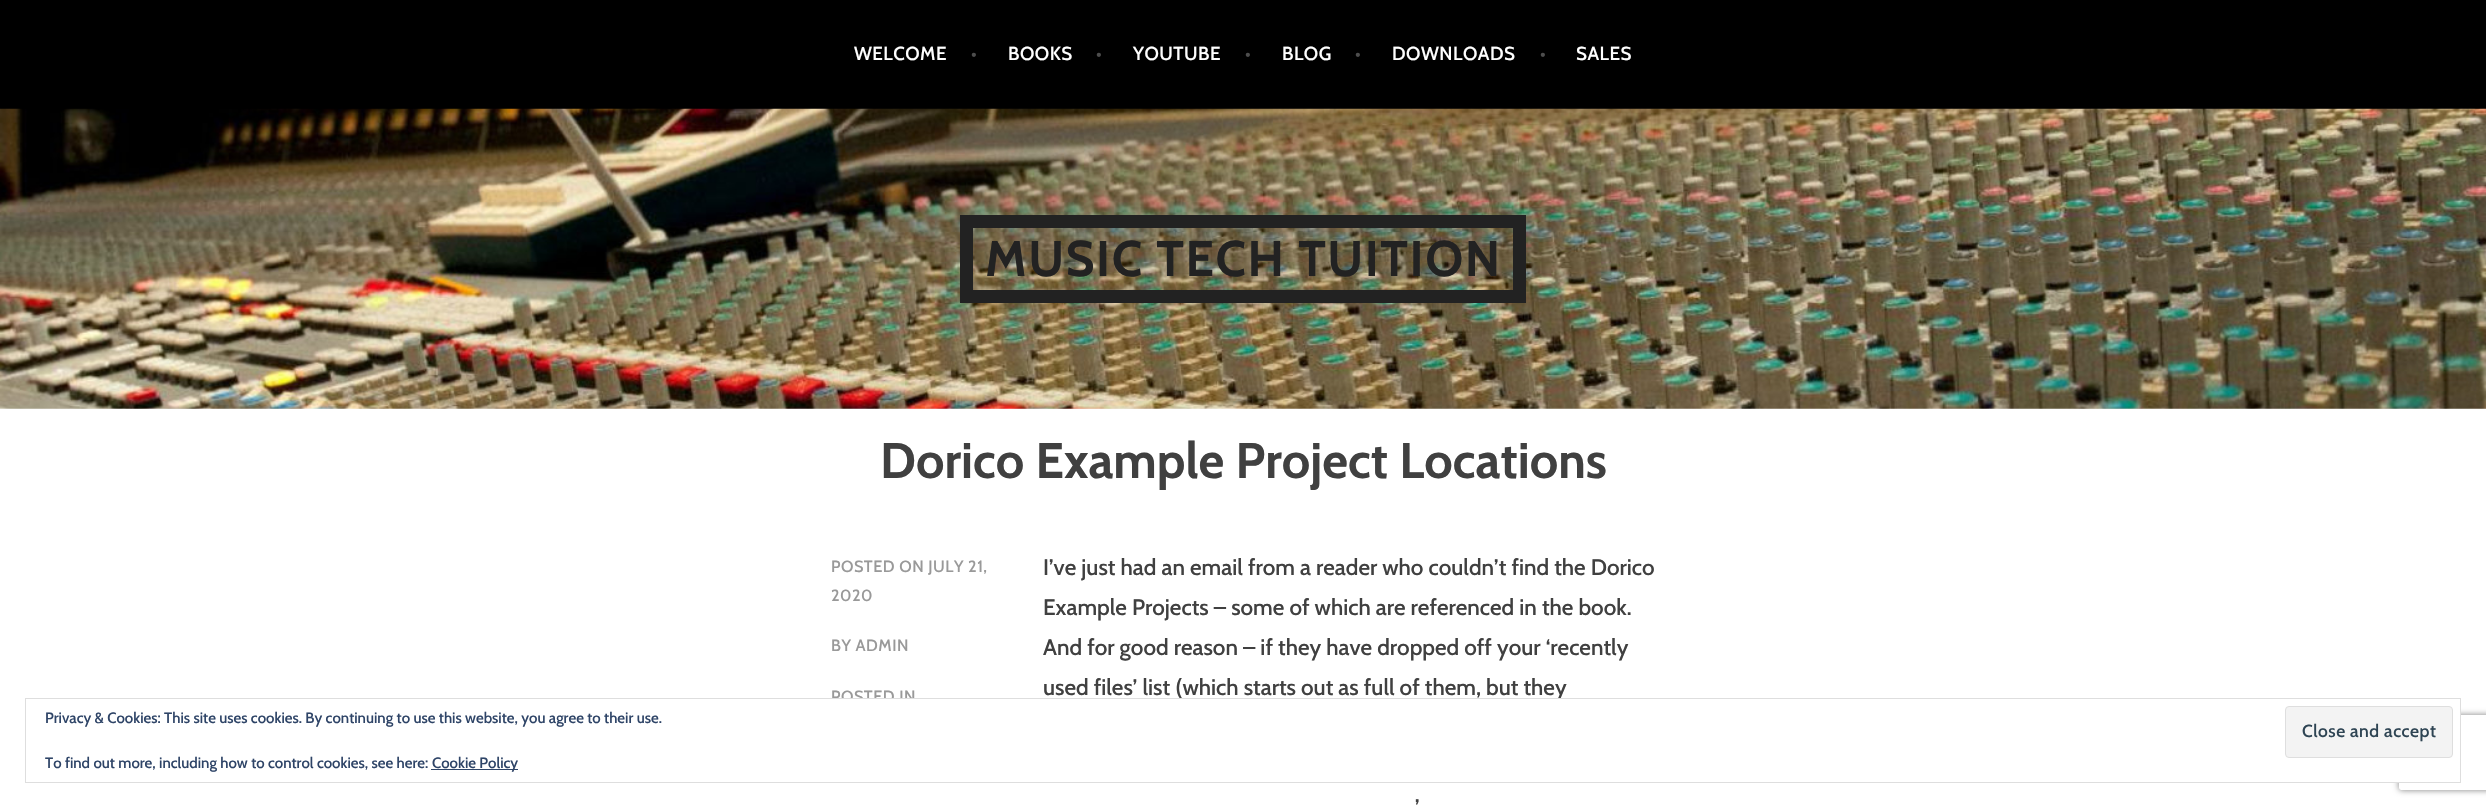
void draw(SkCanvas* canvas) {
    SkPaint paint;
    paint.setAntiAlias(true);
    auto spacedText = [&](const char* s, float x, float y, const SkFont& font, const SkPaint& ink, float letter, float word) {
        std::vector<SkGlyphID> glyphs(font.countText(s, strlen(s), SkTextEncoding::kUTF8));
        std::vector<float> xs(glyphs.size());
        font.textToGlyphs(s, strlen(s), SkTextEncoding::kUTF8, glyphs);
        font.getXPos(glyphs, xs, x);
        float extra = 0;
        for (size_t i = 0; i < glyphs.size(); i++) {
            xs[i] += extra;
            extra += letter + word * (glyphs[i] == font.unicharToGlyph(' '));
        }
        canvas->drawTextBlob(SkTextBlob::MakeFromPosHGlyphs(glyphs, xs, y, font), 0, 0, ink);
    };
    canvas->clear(0xFFFFFFFF);
    paint.setColor(0xFF000000);
    canvas->drawRect(SkRect::MakeXYWH(0, 0, 2486, 109), paint);
    SkFont font1(fontMgr->matchFamilyStyle("Cabin", SkFontStyle(500, SkFontStyle::kNormal_Width, SkFontStyle::kUpright_Slant)), 18.75f);
    font1.setSubpixel(true);
    paint.setColor(0xFFFFFFFF);
    spacedText("WELCOME", 854, 60, font1, paint, 0.5f, 0);
    paint.setColor(0xFF4D4D4D);
    spacedText("•", 971, 60, font1, paint, 0.5f, 0);
    paint.setColor(0xFFFFFFFF);
    spacedText("BOOKS", 1008, 60, font1, paint, 0.5f, 0);
    paint.setColor(0xFF4D4D4D);
    spacedText("•", 1096, 60, font1, paint, 0.5f, 0);
    paint.setColor(0xFFFFFFFF);
    spacedText("YOUTUBE", 1133, 60, font1, paint, 0.5f, 0);
    paint.setColor(0xFF4D4D4D);
    spacedText("•", 1245, 60, font1, paint, 0.5f, 0);
    paint.setColor(0xFFFFFFFF);
    spacedText("BLOG", 1282, 60, font1, paint, 0.5f, 0);
    paint.setColor(0xFF4D4D4D);
    spacedText("•", 1355, 60, font1, paint, 0.5f, 0);
    paint.setColor(0xFFFFFFFF);
    spacedText("DOWNLOADS", 1392, 60, font1, paint, 0.5f, 0);
    paint.setColor(0xFF4D4D4D);
    spacedText("•", 1540, 60, font1, paint, 0.5f, 0);
    paint.setColor(0xFFFFFFFF);
    spacedText("SALES", 1576, 60, font1, paint, 0.5f, 0);
    canvas->drawImageRect(SkImages::DeferredFromEncodedData(SkData::MakeFromFileName("img1.png")), SkRect::MakeXYWH(0, 108, 2486, 301), SkSamplingOptions());
    paint.setStyle(SkPaint::kStroke_Style);
    paint.setStrokeWidth(13);
    paint.setColor(0xFF222222);
    canvas->drawRect(SkRect::MakeXYWH(966.5f, 221.5f, 553, 75), paint);
    SkFont font2(fontMgr->matchFamilyStyle("Cabin", SkFontStyle::Bold()), 50);
    font2.setSubpixel(true);
    paint.setStyle(SkPaint::kFill_Style);
    spacedText("MUSIC TECH TUITION", 985, 276, font2, paint, 1.5f, 0);
    paint.setColor(0xFF404040);
    canvas->drawString("Dorico Example Project Locations", 880, 478, font2, paint);
    SkFont font3(fontMgr->matchFamilyStyle("Cabin", SkFontStyle(500, SkFontStyle::kNormal_Width, SkFontStyle::kUpright_Slant)), 16.25f);
    font3.setSubpixel(true);
    paint.setColor(0xFF999999);
    spacedText("POSTED ON JULY 21,", 831, 572, font3, paint, 0.5f, 0);
    spacedText("2020", 831, 601, font3, paint, 0.5f, 0);
    spacedText("BY ADMIN", 831, 651, font3, paint, 0.5f, 0);
    spacedText("POSTED IN", 831, 702, font3, paint, 0.5f, 0);
    SkFont font4(fontMgr->matchFamilyStyle("Cabin", SkFontStyle(500, SkFontStyle::kNormal_Width, SkFontStyle::kUpright_Slant)), 22.5f);
    font4.setSubpixel(true);
    paint.setColor(0xFF404040);
    canvas->drawString("I’ve just had an email from a reader who couldn’t find the Dorico", 1043, 575, font4, paint);
    canvas->drawString("Example Projects – some of which are referenced in the book.", 1043, 615, font4, paint);
    canvas->drawString("And for good reason – if they have dropped off your ‘recently", 1043, 655, font4, paint);
    canvas->drawString("used files’ list (which starts out as full of them, but they", 1043, 695, font4, paint);
    canvas->drawString("’", 1415, 815, font4, paint);
    canvas->save();
    canvas->clipPath(SkPathBuilder(SkPathFillType::kEvenOdd).moveTo(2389, 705).lineTo(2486, 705).lineTo(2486, 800).lineTo(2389, 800).close().moveTo(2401.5f, 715).lineTo(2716.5f, 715).cubicTo(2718, 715, 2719, 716, 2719, 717.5f).lineTo(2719, 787.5f).cubicTo(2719, 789, 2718, 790, 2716.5f, 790).lineTo(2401.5f, 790).cubicTo(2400, 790, 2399, 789, 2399, 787.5f).lineTo(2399, 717.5f).cubicTo(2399, 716, 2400, 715, 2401.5f, 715).close().detach(), true);
    paint.setColor(0xFF808080);
    paint.setMaskFilter(SkMaskFilter::MakeBlur(kNormal_SkBlurStyle, 3));
    canvas->drawRoundRect(SkRect::MakeXYWH(2399, 715, 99, 75), 2.5f, 2.5f, paint);
    paint.setMaskFilter(nullptr);
    canvas->restore();
    paint.setColor(0xFFFFFFFF);
    canvas->drawRect(SkRect::MakeXYWH(831, 699, 1629, 83), paint);
    paint.setStyle(SkPaint::kStroke_Style);
    paint.setStrokeWidth(1);
    paint.setColor(0xFFDEDEDE);
    canvas->drawRect(SkRect::MakeXYWH(25.5f, 698.5f, 2435, 84), paint);
    SkFont font5(fontMgr->matchFamilyStyle("Cabin", SkFontStyle(500, SkFontStyle::kNormal_Width, SkFontStyle::kUpright_Slant)), 15);
    font5.setSubpixel(true);
    paint.setStyle(SkPaint::kFill_Style);
    paint.setColor(0xFF2E4467);
    canvas->drawString("Privacy & Cookies: This site uses cookies. By continuing to use this website, you agree to their use.", 45, 723, font5, paint);
    paint.setColor(0xFFF3F3F3);
    canvas->drawRoundRect(SkRect::MakeXYWH(2285.5f, 706.5f, 167, 51), 3.5f, 3.5f, paint);
    paint.setStyle(SkPaint::kStroke_Style);
    paint.setColor(0xFFDEDEDE);
    canvas->drawRoundRect(SkRect::MakeXYWH(2285.5f, 706.5f, 167, 51), 3.5f, 3.5f, paint);
    SkFont font6(fontMgr->matchFamilyStyle("Cabin", SkFontStyle(500, SkFontStyle::kNormal_Width, SkFontStyle::kUpright_Slant)), 17.5f);
    font6.setSubpixel(true);
    paint.setStyle(SkPaint::kFill_Style);
    paint.setColor(0xFF2E4453);
    spacedText("Close and accept", 2302, 737, font6, paint, 0.5f, 0);
    paint.setColor(0xFF2E4467);
    canvas->drawString("To find out more, including how to control cookies, see here:", 45, 768, font5, paint);
    canvas->drawRect(SkRect::MakeXYWH(431, 769, 87, 1), paint);
    canvas->drawString("Cookie Policy", 432, 768, font5, paint);
}
